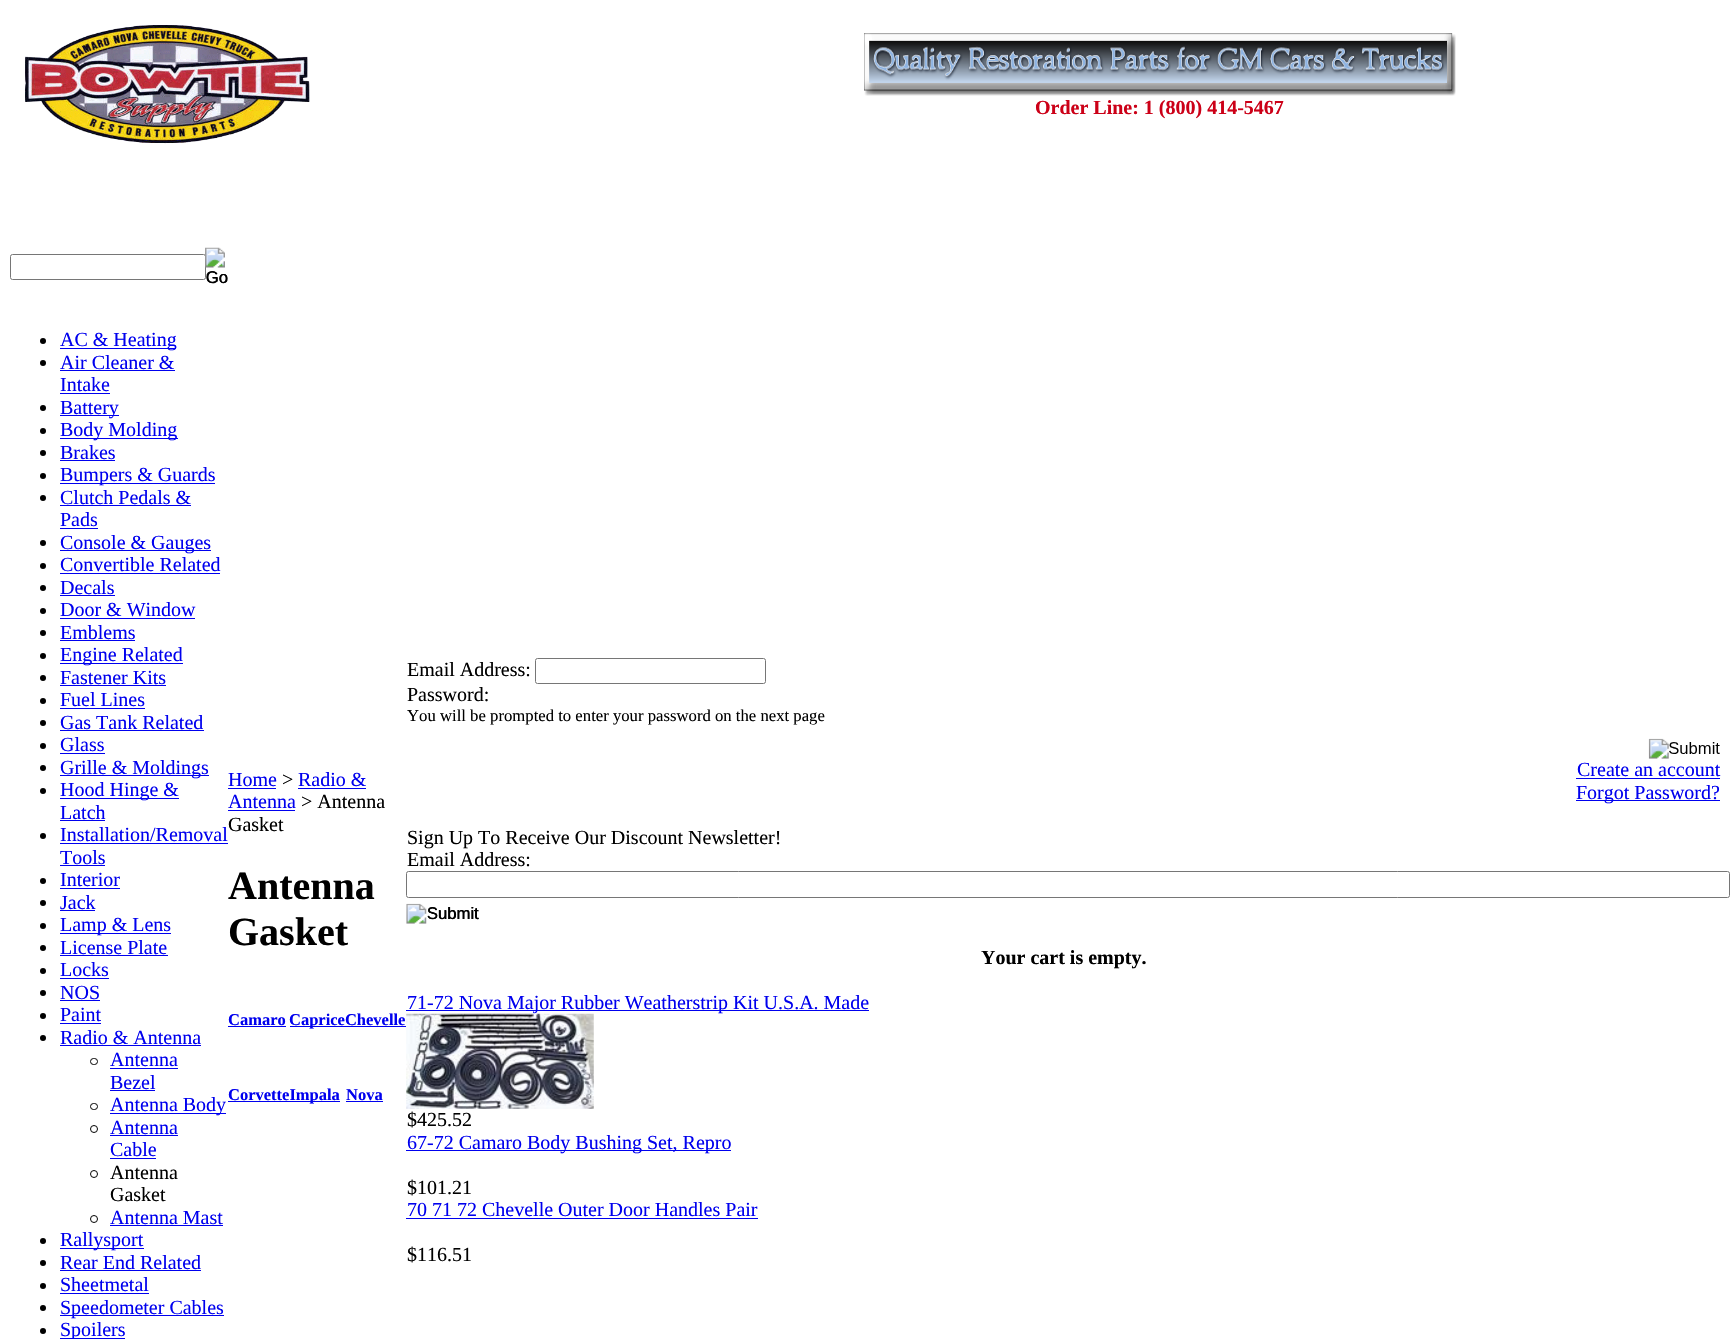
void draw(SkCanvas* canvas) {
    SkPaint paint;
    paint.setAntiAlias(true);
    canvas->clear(0xFFFFFFFF);
    canvas->drawImageRect(SkImages::DeferredFromEncodedData(SkData::MakeFromFileName("img1.png")), SkRect::MakeXYWH(25, 25, 285, 119), SkSamplingOptions());
    canvas->drawImageRect(SkImages::DeferredFromEncodedData(SkData::MakeFromFileName("img2.png")), SkRect::MakeXYWH(864, 33, 592, 63), SkSamplingOptions());
    SkFont font1(fontMgr->matchFamilyStyle("Liberation Serif", SkFontStyle::Bold()), 20);
    font1.setSubpixel(true);
    paint.setColor(0xFFCC0017);
    canvas->drawString("Order Line: 1 (800) 414-5467", 1035, 114, font1, paint);
    paint.setStyle(SkPaint::kStroke_Style);
    paint.setStrokeWidth(1);
    paint.setColor(0xFF767676);
    canvas->drawRoundRect(SkRect::MakeXYWH(10.5f, 254.5f, 195, 25), 2, 2, paint);
    canvas->drawImageRect(SkImages::DeferredFromEncodedData(SkData::MakeFromFileName("img3.png")), SkRect::MakeXYWH(205, 247, 22, 36), SkSamplingOptions());
    SkFont font2(fontMgr->matchFamilyStyle("Liberation Sans", SkFontStyle::Normal()), 16.7f);
    font2.setSubpixel(true);
    paint.setStyle(SkPaint::kFill_Style);
    paint.setColor(0xFF000000);
    canvas->drawString("Go", 206, 283, font2, paint);
    canvas->drawCircle(43, 341, 3, paint);
    paint.setColor(0xFF0000EE);
    canvas->drawRect(SkRect::MakeXYWH(60, 348, 116, 1), paint);
    SkFont font3(fontMgr->matchFamilyStyle("Liberation Serif", SkFontStyle::Normal()), 20);
    font3.setSubpixel(true);
    canvas->drawString("AC & Heating", 60, 346, font3, paint);
    paint.setColor(0xFF000000);
    canvas->drawCircle(43, 363, 3, paint);
    paint.setColor(0xFF0000EE);
    canvas->drawString("Air Cleaner &", 60, 369, font3, paint);
    canvas->drawRect(SkRect::MakeXYWH(60, 370, 115, 1), paint);
    canvas->drawString("Intake", 60, 391, font3, paint);
    canvas->drawRect(SkRect::MakeXYWH(60, 393, 50, 1), paint);
    paint.setColor(0xFF000000);
    canvas->drawCircle(43, 408, 3, paint);
    paint.setColor(0xFF0000EE);
    canvas->drawRect(SkRect::MakeXYWH(60, 415, 59, 1), paint);
    canvas->drawString("Battery", 60, 414, font3, paint);
    paint.setColor(0xFF000000);
    canvas->drawCircle(43, 431, 3, paint);
    paint.setColor(0xFF0000EE);
    canvas->drawRect(SkRect::MakeXYWH(60, 438, 118, 1), paint);
    canvas->drawString("Body Molding", 60, 436, font3, paint);
    paint.setColor(0xFF000000);
    canvas->drawCircle(43, 453, 3, paint);
    paint.setColor(0xFF0000EE);
    canvas->drawString("Brakes", 60, 459, font3, paint);
    canvas->drawRect(SkRect::MakeXYWH(60, 460, 55, 1), paint);
    paint.setColor(0xFF000000);
    canvas->drawCircle(43, 476, 3, paint);
    paint.setColor(0xFF0000EE);
    canvas->drawRect(SkRect::MakeXYWH(60, 483, 155, 1), paint);
    canvas->drawString("Bumpers & Guards", 60, 481, font3, paint);
    paint.setColor(0xFF000000);
    canvas->drawCircle(43, 498, 3, paint);
    paint.setColor(0xFF0000EE);
    canvas->drawString("Clutch Pedals &", 60, 504, font3, paint);
    canvas->drawRect(SkRect::MakeXYWH(60, 505, 131, 1), paint);
    canvas->drawString("Pads", 60, 526, font3, paint);
    canvas->drawRect(SkRect::MakeXYWH(60, 528, 38, 1), paint);
    paint.setColor(0xFF000000);
    canvas->drawCircle(43, 543, 3, paint);
    paint.setColor(0xFF0000EE);
    canvas->drawRect(SkRect::MakeXYWH(60, 550, 151, 1), paint);
    canvas->drawString("Console & Gauges", 60, 549, font3, paint);
    paint.setColor(0xFF000000);
    canvas->drawCircle(43, 566, 3, paint);
    paint.setColor(0xFF0000EE);
    canvas->drawString("Convertible Related", 60, 571, font3, paint);
    canvas->drawRect(SkRect::MakeXYWH(60, 573, 160, 1), paint);
    paint.setColor(0xFF000000);
    canvas->drawCircle(43, 588, 3, paint);
    paint.setColor(0xFF0000EE);
    canvas->drawString("Decals", 60, 594, font3, paint);
    canvas->drawRect(SkRect::MakeXYWH(60, 595, 55, 1), paint);
    paint.setColor(0xFF000000);
    canvas->drawCircle(43, 611, 3, paint);
    paint.setColor(0xFF0000EE);
    canvas->drawString("Door & Window", 60, 616, font3, paint);
    canvas->drawRect(SkRect::MakeXYWH(60, 618, 135, 1), paint);
    paint.setColor(0xFF000000);
    canvas->drawCircle(43, 633, 3, paint);
    paint.setColor(0xFF0000EE);
    canvas->drawString("Emblems", 60, 639, font3, paint);
    canvas->drawRect(SkRect::MakeXYWH(60, 640, 75, 1), paint);
    paint.setColor(0xFF000000);
    canvas->drawCircle(43, 656, 3, paint);
    paint.setColor(0xFF0000EE);
    canvas->drawRect(SkRect::MakeXYWH(60, 663, 123, 1), paint);
    canvas->drawString("Engine Related", 60, 661, font3, paint);
    paint.setColor(0xFF000000);
    canvas->drawCircle(43, 678, 3, paint);
    paint.setColor(0xFF0000EE);
    canvas->drawString("Fastener Kits", 60, 684, font3, paint);
    canvas->drawRect(SkRect::MakeXYWH(60, 685, 106, 1), paint);
    paint.setColor(0xFF000000);
    canvas->drawCircle(43, 701, 3, paint);
    paint.setColor(0xFF0000EE);
    canvas->drawString("Fuel Lines", 60, 706, font3, paint);
    canvas->drawRect(SkRect::MakeXYWH(60, 708, 85, 1), paint);
    paint.setColor(0xFF000000);
    canvas->drawCircle(43, 723, 3, paint);
    paint.setColor(0xFF0000EE);
    canvas->drawString("Gas Tank Related", 60, 729, font3, paint);
    canvas->drawRect(SkRect::MakeXYWH(60, 730, 144, 1), paint);
    paint.setColor(0xFF000000);
    canvas->drawCircle(43, 746, 3, paint);
    paint.setColor(0xFF0000EE);
    canvas->drawString("Glass", 60, 751, font3, paint);
    canvas->drawRect(SkRect::MakeXYWH(60, 753, 45, 1), paint);
    paint.setColor(0xFF000000);
    canvas->drawCircle(43, 768, 3, paint);
    paint.setColor(0xFF0000EE);
    canvas->drawRect(SkRect::MakeXYWH(60, 775, 149, 1), paint);
    canvas->drawString("Grille & Moldings", 60, 774, font3, paint);
    paint.setColor(0xFF000000);
    canvas->drawCircle(43, 791, 3, paint);
    paint.setColor(0xFF0000EE);
    canvas->drawRect(SkRect::MakeXYWH(60, 798, 119, 1), paint);
    canvas->drawString("Hood Hinge &", 60, 796, font3, paint);
    canvas->drawString("Latch", 60, 819, font3, paint);
    canvas->drawRect(SkRect::MakeXYWH(60, 820, 45, 1), paint);
    paint.setColor(0xFF000000);
    canvas->drawCircle(43, 836, 3, paint);
    paint.setColor(0xFF0000EE);
    canvas->drawString("Installation/Removal", 60, 841, font3, paint);
    canvas->drawRect(SkRect::MakeXYWH(60, 843, 168, 1), paint);
    canvas->drawString("Tools", 60, 864, font3, paint);
    canvas->drawRect(SkRect::MakeXYWH(60, 865, 45, 1), paint);
    paint.setColor(0xFF000000);
    canvas->drawCircle(43, 881, 3, paint);
    paint.setColor(0xFF0000EE);
    canvas->drawString("Interior", 60, 886, font3, paint);
    canvas->drawRect(SkRect::MakeXYWH(60, 888, 60, 1), paint);
    paint.setColor(0xFF000000);
    canvas->drawCircle(43, 903, 3, paint);
    paint.setColor(0xFF0000EE);
    canvas->drawString("Jack", 60, 909, font3, paint);
    canvas->drawRect(SkRect::MakeXYWH(60, 910, 35, 1), paint);
    paint.setColor(0xFF000000);
    canvas->drawCircle(43, 926, 3, paint);
    paint.setColor(0xFF0000EE);
    canvas->drawRect(SkRect::MakeXYWH(60, 933, 111, 1), paint);
    canvas->drawString("Lamp & Lens", 60, 931, font3, paint);
    paint.setColor(0xFF000000);
    canvas->drawCircle(43, 948, 3, paint);
    paint.setColor(0xFF0000EE);
    canvas->drawString("License Plate", 60, 954, font3, paint);
    canvas->drawRect(SkRect::MakeXYWH(60, 955, 108, 1), paint);
    paint.setColor(0xFF000000);
    canvas->drawCircle(43, 971, 3, paint);
    paint.setColor(0xFF0000EE);
    canvas->drawString("Locks", 60, 976, font3, paint);
    canvas->drawRect(SkRect::MakeXYWH(60, 978, 49, 1), paint);
    paint.setColor(0xFF000000);
    canvas->drawCircle(43, 993, 3, paint);
    paint.setColor(0xFF0000EE);
    canvas->drawString("NOS", 60, 999, font3, paint);
    canvas->drawRect(SkRect::MakeXYWH(60, 1000, 40, 1), paint);
    paint.setColor(0xFF000000);
    canvas->drawCircle(43, 1016, 3, paint);
    paint.setColor(0xFF0000EE);
    canvas->drawString("Paint", 60, 1021, font3, paint);
    canvas->drawRect(SkRect::MakeXYWH(60, 1023, 41, 1), paint);
    paint.setColor(0xFF000000);
    canvas->drawCircle(43, 1038, 3, paint);
    paint.setColor(0xFF0000EE);
    canvas->drawString("Radio & Antenna", 60, 1044, font3, paint);
    canvas->drawRect(SkRect::MakeXYWH(60, 1045, 141, 1), paint);
    paint.setStyle(SkPaint::kStroke_Style);
    paint.setColor(0xFF000000);
    canvas->drawRoundRect(SkRect::MakeXYWH(90.5f, 1058.5f, 7, 6), 3, 3, paint);
    paint.setStyle(SkPaint::kFill_Style);
    paint.setColor(0xFF0000EE);
    canvas->drawString("Antenna", 110, 1066, font3, paint);
    canvas->drawRect(SkRect::MakeXYWH(110, 1068, 68, 1), paint);
    canvas->drawString("Bezel", 110, 1089, font3, paint);
    canvas->drawRect(SkRect::MakeXYWH(110, 1090, 45, 1), paint);
    paint.setStyle(SkPaint::kStroke_Style);
    paint.setColor(0xFF000000);
    canvas->drawRoundRect(SkRect::MakeXYWH(90.5f, 1103.5f, 7, 6), 3, 3, paint);
    paint.setStyle(SkPaint::kFill_Style);
    paint.setColor(0xFF0000EE);
    canvas->drawRect(SkRect::MakeXYWH(110, 1113, 116, 1), paint);
    canvas->drawString("Antenna Body", 110, 1111, font3, paint);
    paint.setStyle(SkPaint::kStroke_Style);
    paint.setColor(0xFF000000);
    canvas->drawCircle(94, 1129, 3.5f, paint);
    paint.setStyle(SkPaint::kFill_Style);
    paint.setColor(0xFF0000EE);
    canvas->drawString("Antenna", 110, 1134, font3, paint);
    canvas->drawRect(SkRect::MakeXYWH(110, 1135, 68, 1), paint);
    canvas->drawString("Cable", 110, 1156, font3, paint);
    canvas->drawRect(SkRect::MakeXYWH(110, 1158, 46, 1), paint);
    paint.setStyle(SkPaint::kStroke_Style);
    paint.setColor(0xFF000000);
    canvas->drawCircle(94, 1174, 3.5f, paint);
    paint.setStyle(SkPaint::kFill_Style);
    canvas->drawString("Antenna", 110, 1179, font3, paint);
    canvas->drawString("Gasket", 110, 1201, font3, paint);
    paint.setStyle(SkPaint::kStroke_Style);
    canvas->drawCircle(94, 1219, 3.5f, paint);
    paint.setStyle(SkPaint::kFill_Style);
    paint.setColor(0xFF0000EE);
    canvas->drawString("Antenna Mast", 110, 1224, font3, paint);
    canvas->drawRect(SkRect::MakeXYWH(110, 1225, 113, 1), paint);
    paint.setColor(0xFF000000);
    canvas->drawCircle(43, 1241, 3, paint);
    paint.setColor(0xFF0000EE);
    canvas->drawRect(SkRect::MakeXYWH(60, 1248, 84, 1), paint);
    canvas->drawString("Rallysport", 60, 1246, font3, paint);
    paint.setColor(0xFF000000);
    canvas->drawCircle(43, 1263, 3, paint);
    paint.setColor(0xFF0000EE);
    canvas->drawString("Rear End Related", 60, 1269, font3, paint);
    canvas->drawRect(SkRect::MakeXYWH(60, 1270, 141, 1), paint);
    paint.setColor(0xFF000000);
    canvas->drawCircle(43, 1286, 3, paint);
    paint.setColor(0xFF0000EE);
    canvas->drawString("Sheetmetal", 60, 1291, font3, paint);
    canvas->drawRect(SkRect::MakeXYWH(60, 1293, 89, 1), paint);
    paint.setColor(0xFF000000);
    canvas->drawCircle(43, 1308, 3, paint);
    paint.setColor(0xFF0000EE);
    canvas->drawRect(SkRect::MakeXYWH(60, 1315, 164, 1), paint);
    canvas->drawString("Speedometer Cables", 60, 1314, font3, paint);
    paint.setColor(0xFF000000);
    canvas->drawCircle(43, 1331, 3, paint);
    paint.setColor(0xFF0000EE);
    canvas->drawRect(SkRect::MakeXYWH(60, 1338, 65, 1), paint);
    canvas->drawString("Spoilers", 60, 1336, font3, paint);
    canvas->drawString("Home", 228, 786, font3, paint);
    canvas->drawRect(SkRect::MakeXYWH(228, 788, 48, 1), paint);
    paint.setColor(0xFF000000);
    canvas->drawString(">", 282, 786, font3, paint);
    paint.setColor(0xFF0000EE);
    canvas->drawString("Radio &", 298, 786, font3, paint);
    canvas->drawRect(SkRect::MakeXYWH(298, 788, 68, 1), paint);
    canvas->drawString("Antenna", 228, 808, font3, paint);
    canvas->drawRect(SkRect::MakeXYWH(228, 810, 67, 1), paint);
    paint.setColor(0xFF000000);
    canvas->drawString("> Antenna", 301, 808, font3, paint);
    canvas->drawString("Gasket", 228, 831, font3, paint);
    SkFont font4(fontMgr->matchFamilyStyle("Liberation Serif", SkFontStyle::Bold()), 40);
    font4.setSubpixel(true);
    canvas->drawString("Antenna", 228, 899, font4, paint);
    canvas->drawString("Gasket", 228, 945, font4, paint);
    SkFont font5(fontMgr->matchFamilyStyle("Liberation Serif", SkFontStyle::Bold()), 16.5f);
    font5.setSubpixel(true);
    paint.setColor(0xFF0000EE);
    canvas->drawString("Camaro", 228, 1025, font5, paint);
    canvas->drawRect(SkRect::MakeXYWH(228, 1026, 58, 1), paint);
    canvas->drawRect(SkRect::MakeXYWH(290, 1026, 116, 1), paint);
    canvas->drawString("CapriceChevelle", 289, 1025, font5, paint);
    canvas->drawRect(SkRect::MakeXYWH(228, 1101, 112, 1), paint);
    canvas->drawString("CorvetteImpala", 228, 1100, font5, paint);
    canvas->drawString("Nova", 346, 1100, font5, paint);
    canvas->drawRect(SkRect::MakeXYWH(346, 1101, 37, 1), paint);
    paint.setColor(0xFF000000);
    canvas->drawString("Email Address:", 407, 676, font3, paint);
    paint.setStyle(SkPaint::kStroke_Style);
    paint.setColor(0xFF767676);
    canvas->drawRoundRect(SkRect::MakeXYWH(535.5f, 658.5f, 230, 25), 2, 2, paint);
    paint.setStyle(SkPaint::kFill_Style);
    paint.setColor(0xFF000000);
    canvas->drawString("Password:", 407, 701, font3, paint);
    SkFont font6(fontMgr->matchFamilyStyle("Liberation Serif", SkFontStyle::Normal()), 16.7f);
    font6.setSubpixel(true);
    canvas->drawString("You will be prompted to enter your password on the next page", 407, 721, font6, paint);
    canvas->drawImageRect(SkImages::DeferredFromEncodedData(SkData::MakeFromFileName("img4.png")), SkRect::MakeXYWH(1648, 738, 72, 21), SkSamplingOptions());
    paint.setColor(0xFF0000EE);
    canvas->drawString("Create an account", 1577, 776, font3, paint);
    canvas->drawRect(SkRect::MakeXYWH(1576, 778, 144, 1), paint);
    canvas->drawRect(SkRect::MakeXYWH(1576, 800, 144, 1), paint);
    canvas->drawString("Forgot Password?", 1576, 799, font3, paint);
    paint.setColor(0xFF000000);
    canvas->drawString("Sign Up To Receive Our Discount Newsletter!", 407, 844, font3, paint);
    canvas->drawString("Email Address:", 407, 866, font3, paint);
    paint.setStyle(SkPaint::kStroke_Style);
    paint.setColor(0xFF767676);
    canvas->drawRoundRect(SkRect::MakeXYWH(406.5f, 871.5f, 1323, 26), 2, 2, paint);
    canvas->drawImageRect(SkImages::DeferredFromEncodedData(SkData::MakeFromFileName("img5.png")), SkRect::MakeXYWH(406, 903, 73, 21), SkSamplingOptions());
    paint.setStyle(SkPaint::kFill_Style);
    paint.setColor(0xFF000000);
    canvas->drawString("Submit", 427, 919, font2, paint);
    canvas->drawString("Your cart is empty.", 981, 964, font1, paint);
    paint.setColor(0xFF0000EE);
    canvas->drawRect(SkRect::MakeXYWH(406, 1010, 463, 1), paint);
    canvas->drawString("71-72 Nova Major Rubber Weatherstrip Kit U.S.A. Made", 407, 1009, font3, paint);
    canvas->drawImageRect(SkImages::DeferredFromEncodedData(SkData::MakeFromFileName("img6.png")), SkRect::MakeXYWH(406, 1013, 188, 96), SkSamplingOptions());
    paint.setColor(0xFF000000);
    canvas->drawString("$425.52", 407, 1126, font3, paint);
    paint.setColor(0xFF0000EE);
    canvas->drawRect(SkRect::MakeXYWH(406, 1150, 325, 1), paint);
    canvas->drawString("67-72 Camaro Body Bushing Set, Repro", 407, 1149, font3, paint);
    paint.setColor(0xFF000000);
    canvas->drawString("$101.21", 407, 1194, font3, paint);
    paint.setColor(0xFF0000EE);
    canvas->drawString("70 71 72 Chevelle Outer Door Handles Pair", 407, 1216, font3, paint);
    canvas->drawRect(SkRect::MakeXYWH(406, 1218, 352, 1), paint);
    paint.setColor(0xFF000000);
    canvas->drawString("$116.51", 407, 1261, font3, paint);
}
